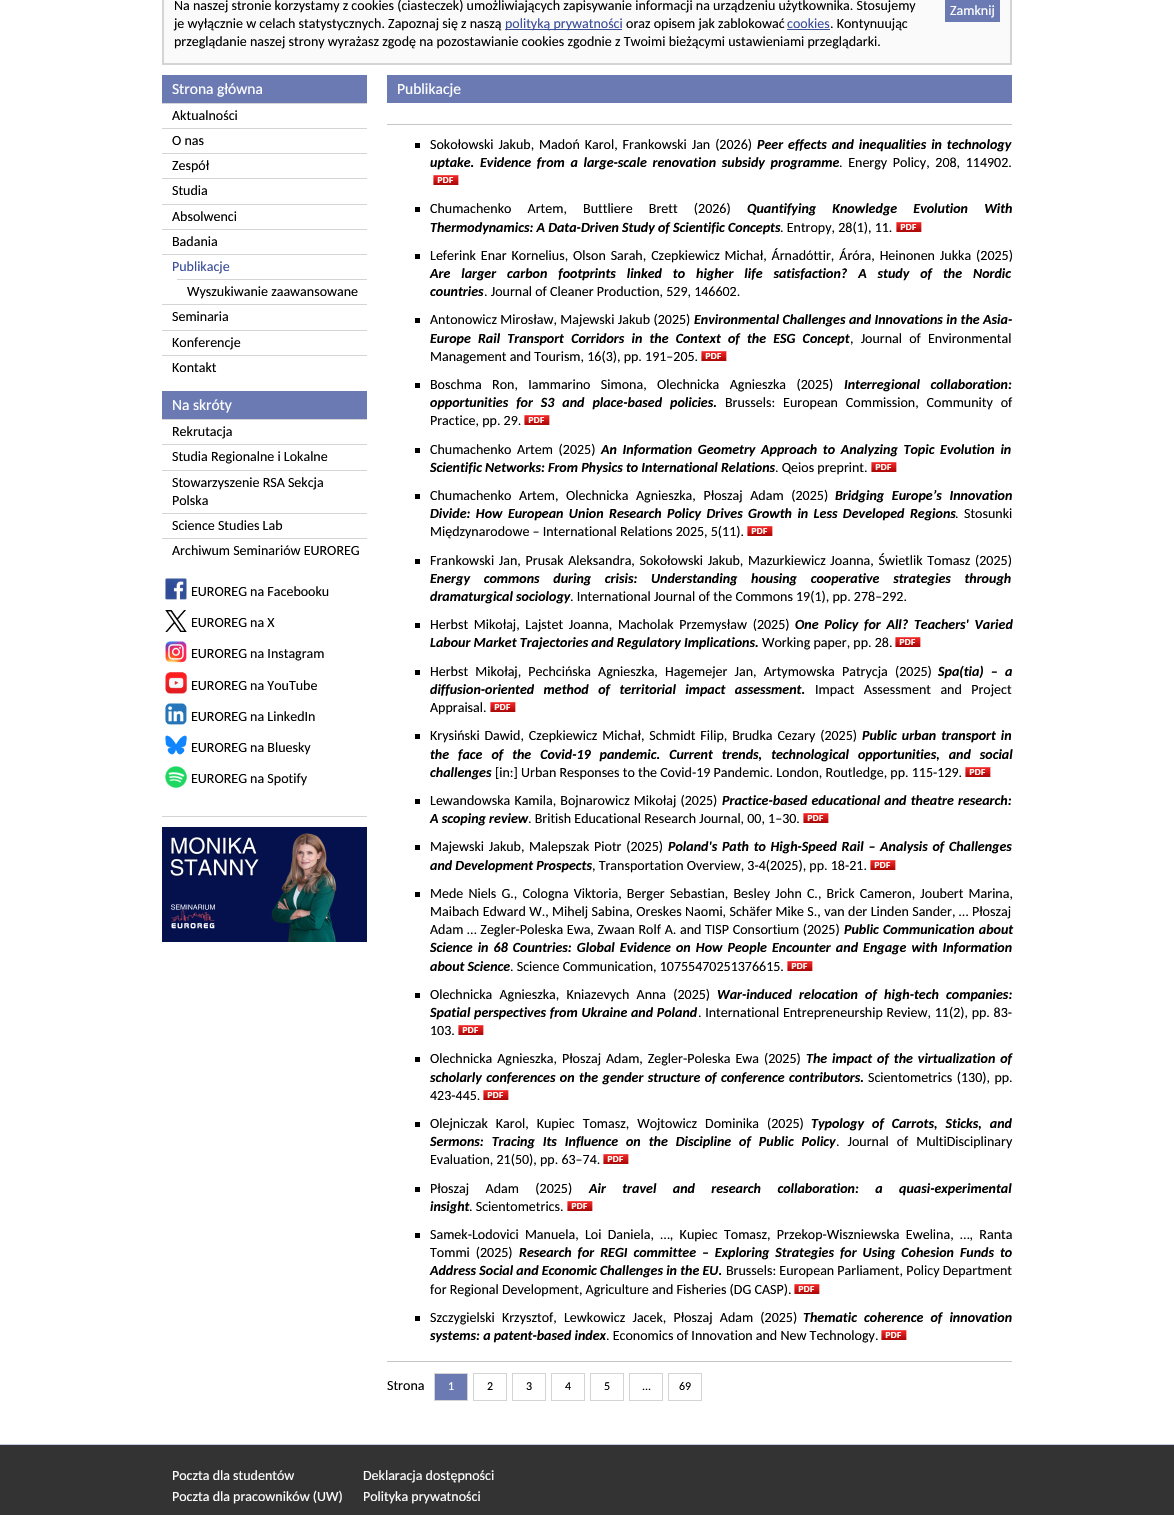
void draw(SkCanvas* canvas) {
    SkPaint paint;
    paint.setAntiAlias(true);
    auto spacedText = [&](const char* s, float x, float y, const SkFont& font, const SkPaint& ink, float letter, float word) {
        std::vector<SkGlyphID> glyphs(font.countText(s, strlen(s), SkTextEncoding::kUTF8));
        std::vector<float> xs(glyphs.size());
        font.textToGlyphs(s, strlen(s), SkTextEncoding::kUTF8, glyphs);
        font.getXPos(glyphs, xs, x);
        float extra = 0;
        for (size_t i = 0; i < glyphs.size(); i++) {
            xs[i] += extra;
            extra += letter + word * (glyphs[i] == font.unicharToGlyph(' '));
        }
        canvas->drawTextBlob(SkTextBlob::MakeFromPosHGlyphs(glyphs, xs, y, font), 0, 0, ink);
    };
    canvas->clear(0xFFFFFFFF);
    paint.setColor(0xFFFAFAFA);
    canvas->drawRect(SkRect::MakeXYWH(163, -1, 848, 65), paint);
    paint.setStyle(SkPaint::kStroke_Style);
    paint.setStrokeWidth(2);
    paint.setColor(0xFFD4D4D4);
    canvas->drawRect(SkRect::MakeXYWH(163, -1, 848, 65), paint);
    SkFont font1(fontMgr->matchFamilyStyle("Carlito", SkFontStyle::Normal()), 14);
    font1.setSubpixel(true);
    paint.setStyle(SkPaint::kFill_Style);
    paint.setColor(0xFF000000);
    canvas->drawString("Na naszej stronie korzystamy z cookies (ciasteczek) umożliwiających zapisywanie informacji na urządzeniu użytkownika. Stosujemy", 174, 10, font1, paint);
    canvas->drawString("je wyłącznie w celach statystycznych. Zapoznaj się z naszą", 174, 28, font1, paint);
    paint.setColor(0xFF3A4E99);
    canvas->drawRect(SkRect::MakeXYWH(505, 29, 117, 1), paint);
    canvas->drawString("polityką prywatności", 505, 28, font1, paint);
    paint.setColor(0xFF000000);
    canvas->drawString("oraz opisem jak zablokować", 626, 28, font1, paint);
    paint.setColor(0xFF3A4E99);
    canvas->drawString("cookies", 787, 28, font1, paint);
    canvas->drawRect(SkRect::MakeXYWH(787, 29, 43, 1), paint);
    paint.setColor(0xFF000000);
    canvas->drawString(". Kontynuując", 830, 28, font1, paint);
    canvas->drawString("przeglądanie naszej strony wyrażasz zgodę na pozostawianie cookies zgodnie z Twoimi bieżącymi ustawieniami przeglądarki.", 174, 46, font1, paint);
    paint.setColor(0xFF6B7AB3);
    canvas->drawRect(SkRect::MakeXYWH(945, 0, 55, 22), paint);
    paint.setColor(0xFFFFFFFF);
    canvas->drawString("Zamknij", 950, 15, font1, paint);
    paint.setColor(0xFF6B7AB3);
    canvas->drawRect(SkRect::MakeXYWH(162, 75, 205, 28), paint);
    SkFont font2(fontMgr->matchFamilyStyle("Carlito", SkFontStyle::Normal()), 15.5f);
    font2.setSubpixel(true);
    paint.setColor(0xFFFFFFFF);
    canvas->drawString("Strona główna", 172, 94, font2, paint);
    paint.setColor(0xFFD4D4D4);
    canvas->drawRect(SkRect::MakeXYWH(162, 103, 205, 1), paint);
    paint.setColor(0xFF000000);
    canvas->drawString("Aktualności", 172, 120, font1, paint);
    paint.setColor(0xFFD4D4D4);
    canvas->drawRect(SkRect::MakeXYWH(162, 128, 205, 1), paint);
    paint.setColor(0xFF000000);
    canvas->drawString("O nas", 172, 145, font1, paint);
    paint.setColor(0xFFD4D4D4);
    canvas->drawRect(SkRect::MakeXYWH(162, 153, 205, 1), paint);
    paint.setColor(0xFF000000);
    canvas->drawString("Zespół", 172, 170, font1, paint);
    paint.setColor(0xFFD4D4D4);
    canvas->drawRect(SkRect::MakeXYWH(162, 178, 205, 1), paint);
    paint.setColor(0xFF000000);
    canvas->drawString("Studia", 172, 195, font1, paint);
    paint.setColor(0xFFD4D4D4);
    canvas->drawRect(SkRect::MakeXYWH(162, 204, 205, 1), paint);
    paint.setColor(0xFF000000);
    canvas->drawString("Absolwenci", 172, 221, font1, paint);
    paint.setColor(0xFFD4D4D4);
    canvas->drawRect(SkRect::MakeXYWH(162, 229, 205, 1), paint);
    paint.setColor(0xFF000000);
    canvas->drawString("Badania", 172, 246, font1, paint);
    paint.setColor(0xFFD4D4D4);
    canvas->drawRect(SkRect::MakeXYWH(162, 254, 205, 1), paint);
    paint.setColor(0xFF3A4E99);
    canvas->drawString("Publikacje", 172, 271, font1, paint);
    paint.setColor(0xFFD4D4D4);
    canvas->drawRect(SkRect::MakeXYWH(177, 279, 190, 1), paint);
    paint.setColor(0xFF000000);
    canvas->drawString("Wyszukiwanie zaawansowane", 187, 296, font1, paint);
    paint.setColor(0xFFD4D4D4);
    canvas->drawRect(SkRect::MakeXYWH(162, 304, 205, 1), paint);
    paint.setColor(0xFF000000);
    canvas->drawString("Seminaria", 172, 321, font1, paint);
    paint.setColor(0xFFD4D4D4);
    canvas->drawRect(SkRect::MakeXYWH(162, 330, 205, 1), paint);
    paint.setColor(0xFF000000);
    canvas->drawString("Konferencje", 172, 347, font1, paint);
    paint.setColor(0xFFD4D4D4);
    canvas->drawRect(SkRect::MakeXYWH(162, 355, 205, 1), paint);
    paint.setColor(0xFF000000);
    canvas->drawString("Kontakt", 172, 372, font1, paint);
    paint.setColor(0xFF6B7AB3);
    canvas->drawRect(SkRect::MakeXYWH(162, 391, 205, 28), paint);
    paint.setColor(0xFFFFFFFF);
    canvas->drawString("Na skróty", 172, 410, font2, paint);
    paint.setColor(0xFFD4D4D4);
    canvas->drawRect(SkRect::MakeXYWH(162, 419, 205, 1), paint);
    paint.setColor(0xFF000000);
    canvas->drawString("Rekrutacja", 172, 436, font1, paint);
    paint.setColor(0xFFD4D4D4);
    canvas->drawRect(SkRect::MakeXYWH(162, 444, 205, 1), paint);
    paint.setColor(0xFF000000);
    canvas->drawString("Studia Regionalne i Lokalne", 172, 461, font1, paint);
    paint.setColor(0xFFD4D4D4);
    canvas->drawRect(SkRect::MakeXYWH(162, 470, 205, 1), paint);
    paint.setColor(0xFF000000);
    canvas->drawString("Stowarzyszenie RSA Sekcja", 172, 487, font1, paint);
    canvas->drawString("Polska", 172, 505, font1, paint);
    paint.setColor(0xFFD4D4D4);
    canvas->drawRect(SkRect::MakeXYWH(162, 513, 205, 1), paint);
    paint.setColor(0xFF000000);
    canvas->drawString("Science Studies Lab", 172, 530, font1, paint);
    paint.setColor(0xFFD4D4D4);
    canvas->drawRect(SkRect::MakeXYWH(162, 538, 205, 1), paint);
    paint.setColor(0xFF000000);
    canvas->drawString("Archiwum Seminariów EUROREG", 172, 555, font1, paint);
    paint.setColor(0xFFD4D4D4);
    canvas->drawRect(SkRect::MakeXYWH(162, 816, 205, 1), paint);
    canvas->drawImageRect(SkImages::DeferredFromEncodedData(SkData::MakeFromFileName("img1.png")), SkRect::MakeXYWH(165, 578, 22, 22), SkSamplingOptions());
    paint.setColor(0xFF000000);
    canvas->drawString("EUROREG na Facebooku", 191, 596, font1, paint);
    canvas->drawImageRect(SkImages::DeferredFromEncodedData(SkData::MakeFromFileName("img2.png")), SkRect::MakeXYWH(165, 610, 22, 22), SkSamplingOptions());
    canvas->drawString("EUROREG na X", 191, 627, font1, paint);
    canvas->drawImageRect(SkImages::DeferredFromEncodedData(SkData::MakeFromFileName("img3.png")), SkRect::MakeXYWH(165, 641, 22, 22), SkSamplingOptions());
    canvas->drawString("EUROREG na Instagram", 191, 658, font1, paint);
    canvas->drawImageRect(SkImages::DeferredFromEncodedData(SkData::MakeFromFileName("img4.png")), SkRect::MakeXYWH(165, 672, 22, 22), SkSamplingOptions());
    canvas->drawString("EUROREG na YouTube", 191, 690, font1, paint);
    canvas->drawImageRect(SkImages::DeferredFromEncodedData(SkData::MakeFromFileName("img5.png")), SkRect::MakeXYWH(165, 703, 22, 22), SkSamplingOptions());
    canvas->drawString("EUROREG na LinkedIn", 191, 721, font1, paint);
    canvas->drawImageRect(SkImages::DeferredFromEncodedData(SkData::MakeFromFileName("img6.png")), SkRect::MakeXYWH(165, 735, 22, 20), SkSamplingOptions());
    canvas->drawString("EUROREG na Bluesky", 191, 752, font1, paint);
    canvas->drawImageRect(SkImages::DeferredFromEncodedData(SkData::MakeFromFileName("img7.png")), SkRect::MakeXYWH(165, 766, 22, 22), SkSamplingOptions());
    canvas->drawString("EUROREG na Spotify", 191, 783, font1, paint);
    canvas->drawImageRect(SkImages::DeferredFromEncodedData(SkData::MakeFromFileName("img8.png")), SkRect::MakeXYWH(162, 827, 205, 115), SkSamplingOptions());
    paint.setColor(0xFF6B7AB3);
    canvas->drawRect(SkRect::MakeXYWH(387, 75, 625, 28), paint);
    paint.setColor(0xFFFFFFFF);
    canvas->drawString("Publikacje", 397, 94, font2, paint);
    paint.setColor(0xFFC6C6C6);
    canvas->drawRect(SkRect::MakeXYWH(387, 124, 625, 1), paint);
    paint.setColor(0xFF000000);
    canvas->drawRect(SkRect::MakeXYWH(415, 143, 5, 5), paint);
    spacedText("Sokołowski Jakub, Madoń Karol, Frankowski Jan (2026)", 430, 149, font1, paint, 0, 1.75f);
    SkFont font3(fontMgr->matchFamilyStyle("Carlito", SkFontStyle::BoldItalic()), 14);
    font3.setSubpixel(true);
    spacedText("Peer effects and inequalities in technology", 757, 149, font3, paint, 0, 1.75f);
    spacedText("uptake. Evidence from a large-scale renovation subsidy programme", 430, 167, font3, paint, 0, 2.5f);
    spacedText(". Energy Policy, 208, 114902.", 839, 167, font1, paint, 0, 2.5f);
    canvas->drawImageRect(SkImages::DeferredFromEncodedData(SkData::MakeFromFileName("img9.png")), SkRect::MakeXYWH(433, 175, 26, 10), SkSamplingOptions());
    canvas->drawRect(SkRect::MakeXYWH(415, 207, 5, 5), paint);
    spacedText("Chumachenko Artem, Buttliere Brett (2026)", 430, 213, font1, paint, 0, 13);
    spacedText("Quantifying Knowledge Evolution With", 747, 213, font3, paint, 0, 13);
    canvas->drawString("Thermodynamics: A Data-Driven Study of Scientific Concepts", 430, 232, font3, paint);
    canvas->drawString(". Entropy, 28(1), 11.", 780, 232, font1, paint);
    canvas->drawImageRect(SkImages::DeferredFromEncodedData(SkData::MakeFromFileName("img9.png")), SkRect::MakeXYWH(896, 222, 26, 10), SkSamplingOptions());
    canvas->drawRect(SkRect::MakeXYWH(415, 254, 5, 5), paint);
    spacedText("Leferink Enar Kornelius, Olson Sarah, Czepkiewicz Michał, Árnadóttir, Áróra, Heinonen Jukka (2025)", 430, 260, font1, paint, 0, 1.75f);
    spacedText("Are larger carbon footprints linked to higher life satisfaction? A study of the Nordic", 430, 278, font3, paint, 0, 7.75f);
    canvas->drawString("countries", 430, 296, font3, paint);
    canvas->drawString(". Journal of Cleaner Production, 529, 146602.", 484, 296, font1, paint);
    canvas->drawRect(SkRect::MakeXYWH(415, 318, 5, 5), paint);
    spacedText("Antonowicz Mirosław, Majewski Jakub (2025)", 430, 324, font1, paint, 0, 0.25f);
    spacedText("Environmental Challenges and Innovations in the Asia-", 694, 324, font3, paint, 0, 0.25f);
    spacedText("Europe Rail Transport Corridors in the Context of the ESG Concept", 430, 343, font3, paint, 0, 4);
    spacedText(", Journal of Environmental", 850, 343, font1, paint, 0, 4);
    canvas->drawString("Management and Tourism, 16(3), pp. 191–205.", 430, 361, font1, paint);
    canvas->drawImageRect(SkImages::DeferredFromEncodedData(SkData::MakeFromFileName("img9.png")), SkRect::MakeXYWH(701, 351, 26, 10), SkSamplingOptions());
    canvas->drawRect(SkRect::MakeXYWH(415, 383, 5, 5), paint);
    spacedText("Boschma Ron, Iammarino Simona, Olechnicka Agnieszka (2025)", 430, 389, font1, paint, 0, 7.25f);
    spacedText("Interregional collaboration:", 844, 389, font3, paint, 0, 7.25f);
    spacedText("opportunities for S3 and place-based policies.", 430, 407, font3, paint, 0, 4.75f);
    spacedText("Brussels: European Commission, Community of", 725, 407, font1, paint, 0, 4.75f);
    canvas->drawString("Practice, pp. 29.", 430, 425, font1, paint);
    canvas->drawImageRect(SkImages::DeferredFromEncodedData(SkData::MakeFromFileName("img9.png")), SkRect::MakeXYWH(524, 415, 26, 10), SkSamplingOptions());
    canvas->drawRect(SkRect::MakeXYWH(415, 448, 5, 5), paint);
    spacedText("Chumachenko Artem (2025)", 430, 454, font1, paint, 0, 2.5f);
    spacedText("An Information Geometry Approach to Analyzing Topic Evolution in", 601, 454, font3, paint, 0, 2.5f);
    canvas->drawString("Scientific Networks: From Physics to International Relations", 430, 472, font3, paint);
    canvas->drawString(". Qeios preprint.", 775, 472, font1, paint);
    canvas->drawImageRect(SkImages::DeferredFromEncodedData(SkData::MakeFromFileName("img9.png")), SkRect::MakeXYWH(871, 462, 26, 10), SkSamplingOptions());
    canvas->drawRect(SkRect::MakeXYWH(415, 494, 5, 5), paint);
    spacedText("Chumachenko Artem, Olechnicka Agnieszka, Płoszaj Adam (2025)", 430, 500, font1, paint, 0, 4.5f);
    spacedText("Bridging Europe’s Innovation", 835, 500, font3, paint, 0, 4.5f);
    spacedText("Divide: How European Union Research Policy Drives Growth in Less Developed Regions", 430, 518, font3, paint, 0, 2.25f);
    spacedText(". Stosunki", 955, 518, font1, paint, 0, 2.25f);
    canvas->drawString("Międzynarodowe – International Relations 2025, 5(11).", 430, 536, font1, paint);
    canvas->drawImageRect(SkImages::DeferredFromEncodedData(SkData::MakeFromFileName("img9.png")), SkRect::MakeXYWH(747, 526, 26, 10), SkSamplingOptions());
    canvas->drawRect(SkRect::MakeXYWH(415, 559, 5, 5), paint);
    spacedText("Frankowski Jan, Prusak Aleksandra, Sokołowski Jakub, Mazurkiewicz Joanna, Świetlik Tomasz (2025)", 430, 565, font1, paint, 0, 1.5f);
    spacedText("Energy commons during crisis: Understanding housing cooperative strategies through", 430, 583, font3, paint, 0, 10.5f);
    canvas->drawString("dramaturgical sociology", 430, 601, font3, paint);
    canvas->drawString(". International Journal of the Commons 19(1), pp. 278–292.", 570, 601, font1, paint);
    canvas->drawRect(SkRect::MakeXYWH(415, 623, 5, 5), paint);
    spacedText("Herbst Mikołaj, Lajstet Joanna, Macholak Przemysław (2025)", 430, 629, font1, paint, 0, 2.5f);
    spacedText("One Policy for All? Teachers' Varied", 795, 629, font3, paint, 0, 2.5f);
    canvas->drawString("Labour Market Trajectories and Regulatory Implications.", 430, 647, font3, paint);
    canvas->drawString("Working paper, pp. 28.", 762, 647, font1, paint);
    canvas->drawImageRect(SkImages::DeferredFromEncodedData(SkData::MakeFromFileName("img9.png")), SkRect::MakeXYWH(895, 637, 26, 10), SkSamplingOptions());
    canvas->drawRect(SkRect::MakeXYWH(415, 670, 5, 5), paint);
    spacedText("Herbst Mikołaj, Pechcińska Agnieszka, Hagemejer Jan, Artymowska Patrycja (2025)", 430, 676, font1, paint, 0, 4);
    spacedText("Spa(tia) – a", 938, 676, font3, paint, 0, 4);
    spacedText("diffusion-oriented method of territorial impact assessment.", 430, 694, font3, paint, 0, 6.25f);
    spacedText("Impact Assessment and Project", 815, 694, font1, paint, 0, 6.25f);
    canvas->drawString("Appraisal.", 430, 712, font1, paint);
    canvas->drawImageRect(SkImages::DeferredFromEncodedData(SkData::MakeFromFileName("img9.png")), SkRect::MakeXYWH(490, 702, 26, 10), SkSamplingOptions());
    canvas->drawRect(SkRect::MakeXYWH(415, 734, 5, 5), paint);
    spacedText("Krysiński Dawid, Czepkiewicz Michał, Schmidt Filip, Brudka Cezary (2025)", 430, 740, font1, paint, 0, 1.75f);
    spacedText("Public urban transport in", 862, 740, font3, paint, 0, 1.75f);
    spacedText("the face of the Covid-19 pandemic. Current trends, technological opportunities, and social", 430, 759, font3, paint, 0, 5.75f);
    canvas->drawString("challenges", 430, 777, font3, paint);
    canvas->drawString("[in:] Urban Responses to the Covid-19 Pandemic. London, Routledge, pp. 115-129.", 495, 777, font1, paint);
    canvas->drawImageRect(SkImages::DeferredFromEncodedData(SkData::MakeFromFileName("img9.png")), SkRect::MakeXYWH(965, 767, 26, 10), SkSamplingOptions());
    canvas->drawRect(SkRect::MakeXYWH(415, 799, 5, 5), paint);
    spacedText("Lewandowska Kamila, Bojnarowicz Mikołaj (2025)", 430, 805, font1, paint, 0, 1);
    spacedText("Practice-based educational and theatre research:", 722, 805, font3, paint, 0, 1);
    canvas->drawString("A scoping review", 430, 823, font3, paint);
    canvas->drawString(". British Educational Research Journal, 00, 1–30.", 528, 823, font1, paint);
    canvas->drawImageRect(SkImages::DeferredFromEncodedData(SkData::MakeFromFileName("img9.png")), SkRect::MakeXYWH(803, 813, 26, 10), SkSamplingOptions());
    canvas->drawRect(SkRect::MakeXYWH(415, 845, 5, 5), paint);
    spacedText("Majewski Jakub, Malepszak Piotr (2025)", 430, 851, font1, paint, 0, 1.5f);
    spacedText("Poland's Path to High-Speed Rail – Analysis of Challenges", 668, 851, font3, paint, 0, 1.5f);
    canvas->drawString("and Development Prospects", 430, 870, font3, paint);
    canvas->drawString(", Transportation Overview, 3-4(2025), pp. 18-21.", 592, 870, font1, paint);
    canvas->drawImageRect(SkImages::DeferredFromEncodedData(SkData::MakeFromFileName("img9.png")), SkRect::MakeXYWH(870, 860, 26, 10), SkSamplingOptions());
    canvas->drawRect(SkRect::MakeXYWH(415, 892, 5, 5), paint);
    spacedText("Mede Niels G., Cologna Viktoria, Berger Sebastian, Besley John C., Brick Cameron, Joubert Marina,", 430, 898, font1, paint, 0, 2);
    spacedText("Maibach Edward W., Mihelj Sabina, Oreskes Naomi, Schäfer Mike S., van der Linden Sander, … Płoszaj", 430, 916, font1, paint, 0, 0.25f);
    spacedText("Adam … Zegler-Poleska Ewa, Zwaan Rolf A. and TISP Consortium (2025)", 430, 934, font1, paint, 0, 0.5f);
    spacedText("Public Communication about", 844, 934, font3, paint, 0, 1);
    spacedText("Science in 68 Countries: Global Evidence on How People Encounter and Engage with Information", 430, 952, font3, paint, 0, 1.9f);
    canvas->drawString("about Science", 430, 971, font3, paint);
    canvas->drawString(". Science Communication, 10755470251376615.", 510, 971, font1, paint);
    canvas->drawImageRect(SkImages::DeferredFromEncodedData(SkData::MakeFromFileName("img9.png")), SkRect::MakeXYWH(787, 961, 26, 10), SkSamplingOptions());
    canvas->drawRect(SkRect::MakeXYWH(415, 993, 5, 5), paint);
    spacedText("Olechnicka Agnieszka, Kniazevych Anna (2025)", 430, 999, font1, paint, 0, 4);
    spacedText("War-induced relocation of high-tech companies:", 717, 999, font3, paint, 0, 4);
    spacedText("Spatial perspectives from Ukraine and Poland", 430, 1017, font3, paint, 0, 0.5f);
    spacedText(". International Entrepreneurship Review, 11(2), pp. 83-", 698, 1017, font1, paint, 0, 0.5f);
    canvas->drawString("103.", 430, 1035, font1, paint);
    canvas->drawImageRect(SkImages::DeferredFromEncodedData(SkData::MakeFromFileName("img9.png")), SkRect::MakeXYWH(458, 1025, 26, 10), SkSamplingOptions());
    canvas->drawRect(SkRect::MakeXYWH(415, 1057, 5, 5), paint);
    spacedText("Olechnicka Agnieszka, Płoszaj Adam, Zegler-Poleska Ewa (2025)", 430, 1063, font1, paint, 0, 1.75f);
    spacedText("The impact of the virtualization of", 806, 1063, font3, paint, 0, 1.75f);
    spacedText("scholarly conferences on the gender structure of conference contributors.", 430, 1082, font3, paint, 0, 1.25f);
    spacedText("Scientometrics (130), pp.", 868, 1082, font1, paint, 0, 1.25f);
    canvas->drawString("423-445.", 430, 1100, font1, paint);
    canvas->drawImageRect(SkImages::DeferredFromEncodedData(SkData::MakeFromFileName("img9.png")), SkRect::MakeXYWH(483, 1090, 26, 10), SkSamplingOptions());
    canvas->drawRect(SkRect::MakeXYWH(415, 1122, 5, 5), paint);
    spacedText("Olejniczak Karol, Kupiec Tomasz, Wojtowicz Dominika (2025)", 430, 1128, font1, paint, 0, 4.75f);
    spacedText("Typology of Carrots, Sticks, and", 811, 1128, font3, paint, 0, 4.75f);
    spacedText("Sermons: Tracing Its Influence on the Discipline of Public Policy", 430, 1146, font3, paint, 0, 4.75f);
    spacedText(". Journal of MultiDisciplinary", 836, 1146, font1, paint, 0, 4.75f);
    canvas->drawString("Evaluation, 21(50), pp. 63–74.", 430, 1164, font1, paint);
    canvas->drawImageRect(SkImages::DeferredFromEncodedData(SkData::MakeFromFileName("img9.png")), SkRect::MakeXYWH(603, 1154, 26, 10), SkSamplingOptions());
    canvas->drawRect(SkRect::MakeXYWH(415, 1187, 5, 5), paint);
    spacedText("Płoszaj Adam (2025)", 430, 1193, font1, paint, 0, 13.25f);
    spacedText("Air travel and research collaboration: a quasi-experimental", 589, 1193, font3, paint, 0, 13.25f);
    canvas->drawString("insight", 430, 1211, font3, paint);
    canvas->drawString(". Scientometrics.", 469, 1211, font1, paint);
    canvas->drawImageRect(SkImages::DeferredFromEncodedData(SkData::MakeFromFileName("img9.png")), SkRect::MakeXYWH(567, 1201, 26, 10), SkSamplingOptions());
    canvas->drawRect(SkRect::MakeXYWH(415, 1233, 5, 5), paint);
    spacedText("Samek-Lodovici Manuela, Loi Daniela, …, Kupiec Tomasz, Przekop-Wiszniewska Ewelina, …, Ranta", 430, 1239, font1, paint, 0, 3.1f);
    spacedText("Tommi (2025)", 430, 1257, font1, paint, 0, 2.75f);
    spacedText("Research for REGI committee – Exploring Strategies for Using Cohesion Funds to", 519, 1257, font3, paint, 0, 2.75f);
    canvas->drawString("Address Social and Economic Challenges in the EU.", 430, 1275, font3, paint);
    canvas->drawString("Brussels: European Parliament, Policy Department", 726, 1275, font1, paint);
    canvas->drawString("for Regional Development, Agriculture and Fisheries (DG CASP).", 430, 1294, font1, paint);
    canvas->drawImageRect(SkImages::DeferredFromEncodedData(SkData::MakeFromFileName("img9.png")), SkRect::MakeXYWH(794, 1284, 26, 10), SkSamplingOptions());
    canvas->drawRect(SkRect::MakeXYWH(415, 1316, 5, 5), paint);
    spacedText("Szczygielski Krzysztof, Lewkowicz Jacek, Płoszaj Adam (2025)", 430, 1322, font1, paint, 0, 4);
    spacedText("Thematic coherence of innovation", 803, 1322, font3, paint, 0, 4);
    canvas->drawString("systems: a patent-based index", 430, 1340, font3, paint);
    canvas->drawString(". Economics of Innovation and New Technology.", 606, 1340, font1, paint);
    canvas->drawImageRect(SkImages::DeferredFromEncodedData(SkData::MakeFromFileName("img9.png")), SkRect::MakeXYWH(881, 1330, 26, 10), SkSamplingOptions());
    paint.setColor(0xFFC6C6C6);
    canvas->drawRect(SkRect::MakeXYWH(387, 1361, 625, 1), paint);
    paint.setColor(0xFF000000);
    canvas->drawString("Strona", 387, 1390, font1, paint);
    paint.setColor(0xFF6B7AB3);
    canvas->drawRect(SkRect::MakeXYWH(434.5f, 1373.5f, 33, 27), paint);
    paint.setStyle(SkPaint::kStroke_Style);
    paint.setStrokeWidth(1);
    paint.setColor(0xFFD4D4D4);
    canvas->drawRect(SkRect::MakeXYWH(434.5f, 1373.5f, 33, 27), paint);
    SkFont font4(fontMgr->matchFamilyStyle("Carlito", SkFontStyle::Normal()), 12);
    font4.setSubpixel(true);
    paint.setStyle(SkPaint::kFill_Style);
    paint.setColor(0xFFFFFFFF);
    canvas->drawString("1", 448, 1390, font4, paint);
    paint.setStyle(SkPaint::kStroke_Style);
    paint.setColor(0xFFD4D4D4);
    canvas->drawRect(SkRect::MakeXYWH(473.5f, 1373.5f, 33, 27), paint);
    paint.setStyle(SkPaint::kFill_Style);
    paint.setColor(0xFF000000);
    canvas->drawString("2", 487, 1390, font4, paint);
    paint.setStyle(SkPaint::kStroke_Style);
    paint.setColor(0xFFD4D4D4);
    canvas->drawRect(SkRect::MakeXYWH(512.5f, 1373.5f, 33, 27), paint);
    paint.setStyle(SkPaint::kFill_Style);
    paint.setColor(0xFF000000);
    canvas->drawString("3", 526, 1390, font4, paint);
    paint.setStyle(SkPaint::kStroke_Style);
    paint.setColor(0xFFD4D4D4);
    canvas->drawRect(SkRect::MakeXYWH(551.5f, 1373.5f, 33, 27), paint);
    paint.setStyle(SkPaint::kFill_Style);
    paint.setColor(0xFF000000);
    canvas->drawString("4", 565, 1390, font4, paint);
    paint.setStyle(SkPaint::kStroke_Style);
    paint.setColor(0xFFD4D4D4);
    canvas->drawRect(SkRect::MakeXYWH(590.5f, 1373.5f, 33, 27), paint);
    paint.setStyle(SkPaint::kFill_Style);
    paint.setColor(0xFF000000);
    canvas->drawString("5", 604, 1390, font4, paint);
    paint.setStyle(SkPaint::kStroke_Style);
    paint.setColor(0xFFD4D4D4);
    canvas->drawRect(SkRect::MakeXYWH(629.5f, 1373.5f, 33, 27), paint);
    paint.setStyle(SkPaint::kFill_Style);
    paint.setColor(0xFF000000);
    canvas->drawString("...", 642, 1390, font4, paint);
    paint.setStyle(SkPaint::kStroke_Style);
    paint.setColor(0xFFD4D4D4);
    canvas->drawRect(SkRect::MakeXYWH(668.5f, 1373.5f, 33, 27), paint);
    paint.setStyle(SkPaint::kFill_Style);
    paint.setColor(0xFF000000);
    canvas->drawString("69", 679, 1390, font4, paint);
    paint.setColor(0xFF333333);
    canvas->drawRect(SkRect::MakeXYWH(0, 1445, 1174, 70), paint);
    paint.setColor(0xFFC4CAE1);
    canvas->drawRect(SkRect::MakeXYWH(0, 1444, 1174, 1), paint);
    paint.setColor(0xFFFFFFFF);
    canvas->drawString("Poczta dla studentów", 172, 1480, font1, paint);
    canvas->drawString("Poczta dla pracowników (UW)", 172, 1501, font1, paint);
    canvas->drawString("Deklaracja dostępności", 363, 1480, font1, paint);
    canvas->drawString("Polityka prywatności", 363, 1501, font1, paint);
}
